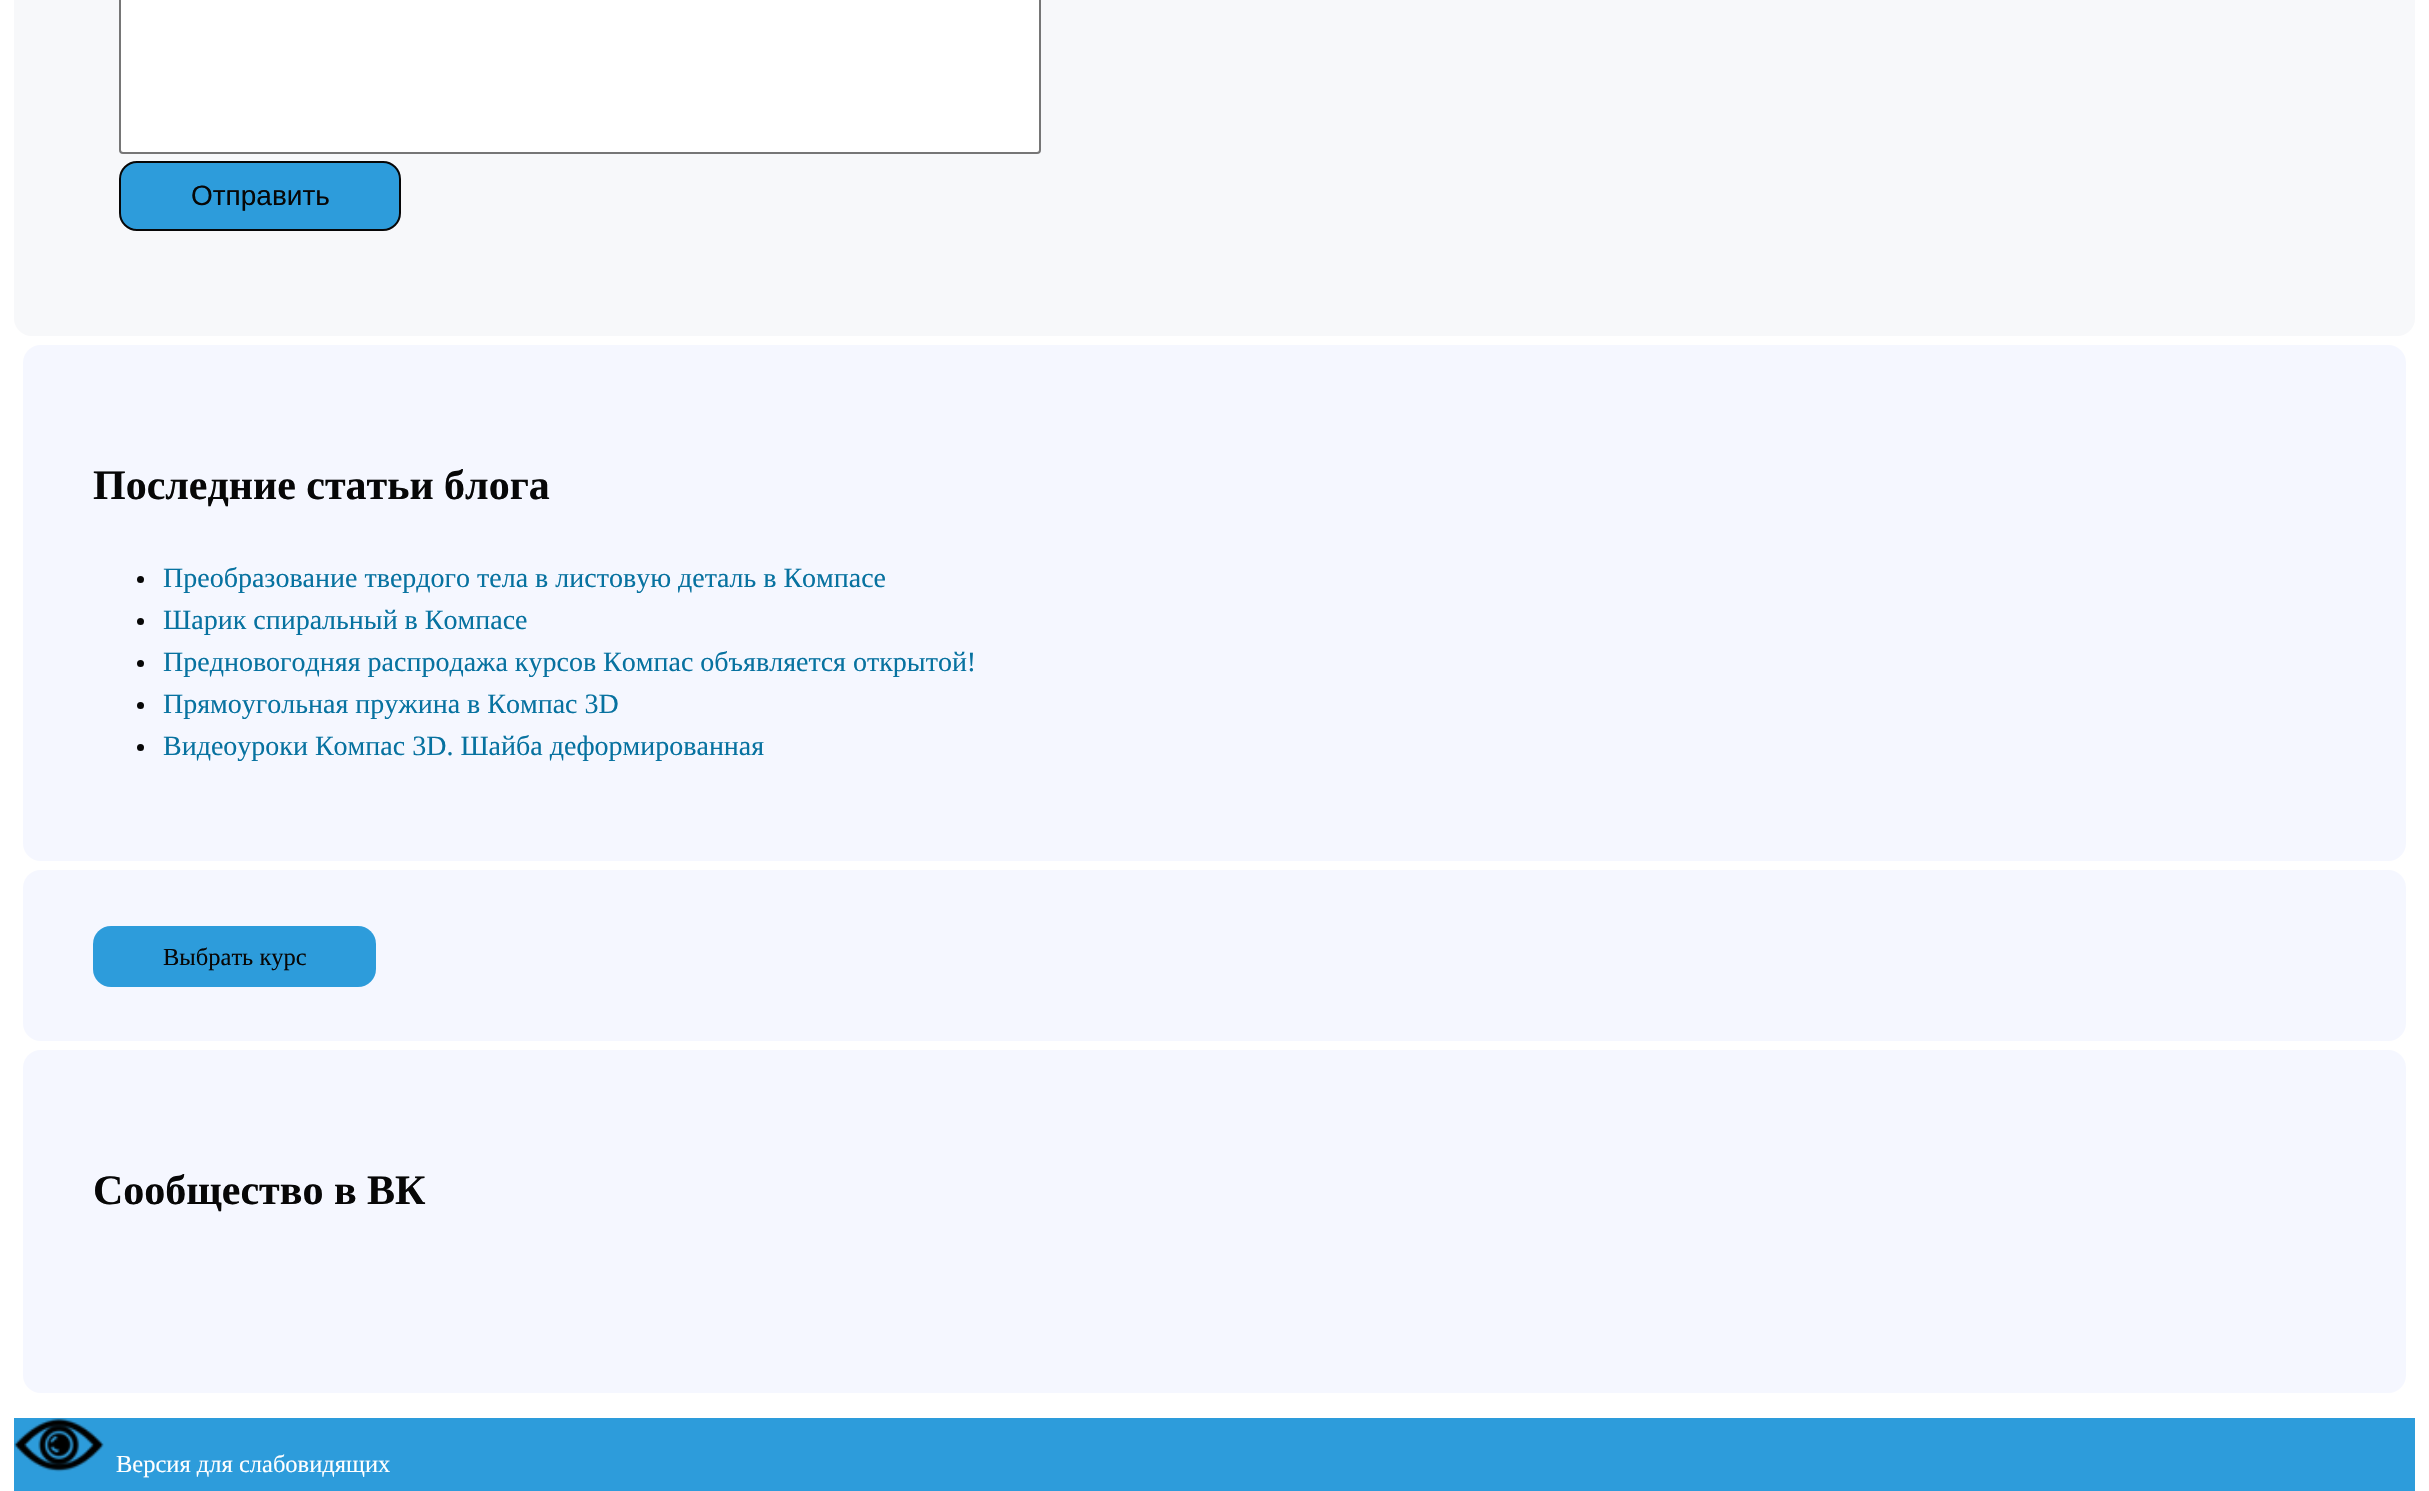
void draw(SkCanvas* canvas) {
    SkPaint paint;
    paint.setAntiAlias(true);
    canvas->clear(0xFFFFFFFF);
    paint.setColor(0xFFF7F8FA);
    canvas->drawRoundRect(SkRect::MakeXYWH(14, -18, 2401, 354), 18, 18, paint);
    paint.setColor(0xFFFFFFFF);
    canvas->drawRoundRect(SkRect::MakeXYWH(120, -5, 920, 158), 3, 3, paint);
    paint.setStyle(SkPaint::kStroke_Style);
    paint.setStrokeWidth(2);
    paint.setColor(0xFF767676);
    canvas->drawRoundRect(SkRect::MakeXYWH(120, -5, 920, 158), 3, 3, paint);
    paint.setStyle(SkPaint::kFill_Style);
    paint.setColor(0xFF2D9CDB);
    canvas->drawRoundRect(SkRect::MakeXYWH(120, 162, 280, 68), 17, 17, paint);
    paint.setStyle(SkPaint::kStroke_Style);
    paint.setColor(0xFF070707);
    canvas->drawRoundRect(SkRect::MakeXYWH(120, 162, 280, 68), 17, 17, paint);
    SkFont font1(fontMgr->matchFamilyStyle("Liberation Sans", SkFontStyle::Normal()), 28);
    font1.setSubpixel(true);
    paint.setStyle(SkPaint::kFill_Style);
    canvas->drawString("Отправить", 191, 205, font1, paint);
    paint.setColor(0xFFF5F7FF);
    canvas->drawRoundRect(SkRect::MakeXYWH(23, 345, 2383, 516), 18, 18, paint);
    SkFont font2(fontMgr->matchFamilyStyle("Liberation Serif", SkFontStyle::Bold()), 42);
    font2.setSubpixel(true);
    paint.setColor(0xFF070707);
    canvas->drawString("Последние статьи блога", 93, 499, font2, paint);
    canvas->drawCircle(140.5f, 579.5f, 3.5f, paint);
    SkFont font3(fontMgr->matchFamilyStyle("Liberation Serif", SkFontStyle::Normal()), 28);
    font3.setSubpixel(true);
    paint.setColor(0xFF0772A0);
    canvas->drawString("Преобразование твердого тела в листовую деталь в Компасе", 163, 587, font3, paint);
    paint.setColor(0xFF070707);
    canvas->drawCircle(140.5f, 621.5f, 3.5f, paint);
    paint.setColor(0xFF0772A0);
    canvas->drawString("Шарик спиральный в Компасе", 163, 629, font3, paint);
    paint.setColor(0xFF070707);
    canvas->drawCircle(140.5f, 663.5f, 3.5f, paint);
    paint.setColor(0xFF0772A0);
    canvas->drawString("Предновогодняя распродажа курсов Компас объявляется открытой!", 163, 671, font3, paint);
    paint.setColor(0xFF070707);
    canvas->drawCircle(140.5f, 705.5f, 3.5f, paint);
    paint.setColor(0xFF0772A0);
    canvas->drawString("Прямоугольная пружина в Компас 3D", 163, 713, font3, paint);
    paint.setColor(0xFF070707);
    canvas->drawCircle(140.5f, 747.5f, 3.5f, paint);
    paint.setColor(0xFF0772A0);
    canvas->drawString("Видеоуроки Компас 3D. Шайба деформированная", 163, 755, font3, paint);
    paint.setColor(0xFFF5F7FF);
    canvas->drawRoundRect(SkRect::MakeXYWH(23, 870, 2383, 171), 18, 18, paint);
    paint.setColor(0xFF2D9CDB);
    canvas->drawRoundRect(SkRect::MakeXYWH(93, 926, 283, 61), 18, 18, paint);
    SkFont font4(fontMgr->matchFamilyStyle("Liberation Serif", SkFontStyle::Normal()), 24.5f);
    font4.setSubpixel(true);
    paint.setColor(0xFF070707);
    canvas->drawString("Выбрать курс", 163, 965, font4, paint);
    paint.setColor(0xFFF5F7FF);
    canvas->drawRoundRect(SkRect::MakeXYWH(23, 1050, 2383, 343), 18, 18, paint);
    paint.setColor(0xFF070707);
    canvas->drawString("Сообщество в ВК", 93, 1204, font2, paint);
    paint.setColor(0xFF2D9CDB);
    canvas->drawRect(SkRect::MakeXYWH(14, 1418, 2401, 73), paint);
    canvas->drawImageRect(SkImages::DeferredFromEncodedData(SkData::MakeFromFileName("img1.png")), SkRect::MakeXYWH(14, 1418, 90, 54), SkSamplingOptions());
    paint.setColor(0xFFFFFFFF);
    canvas->drawString("Версия для слабовидящих", 116, 1472, font4, paint);
}
